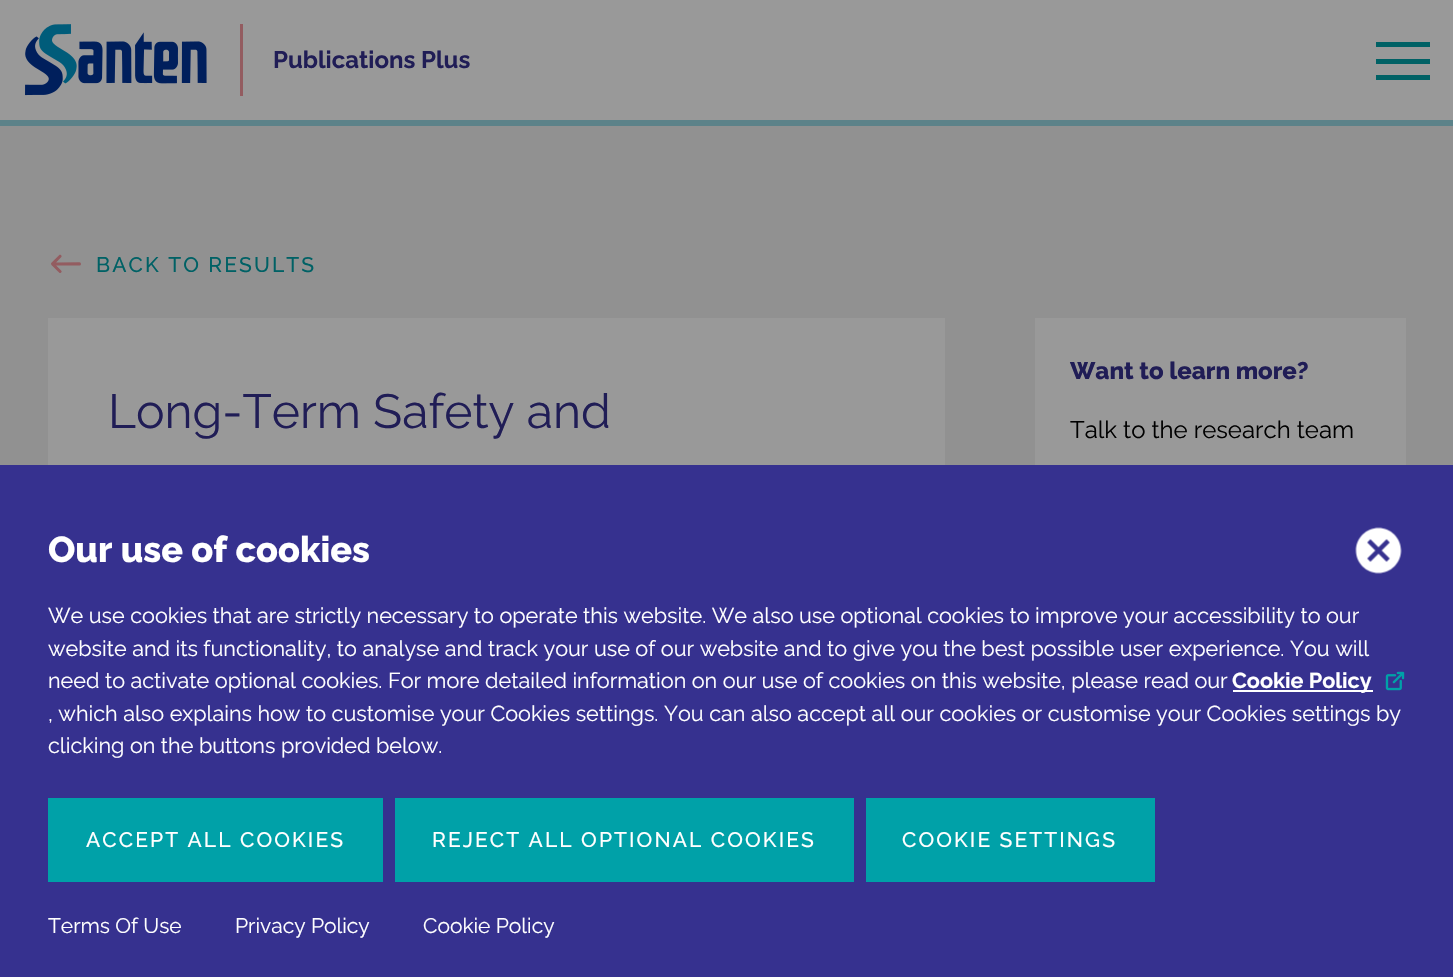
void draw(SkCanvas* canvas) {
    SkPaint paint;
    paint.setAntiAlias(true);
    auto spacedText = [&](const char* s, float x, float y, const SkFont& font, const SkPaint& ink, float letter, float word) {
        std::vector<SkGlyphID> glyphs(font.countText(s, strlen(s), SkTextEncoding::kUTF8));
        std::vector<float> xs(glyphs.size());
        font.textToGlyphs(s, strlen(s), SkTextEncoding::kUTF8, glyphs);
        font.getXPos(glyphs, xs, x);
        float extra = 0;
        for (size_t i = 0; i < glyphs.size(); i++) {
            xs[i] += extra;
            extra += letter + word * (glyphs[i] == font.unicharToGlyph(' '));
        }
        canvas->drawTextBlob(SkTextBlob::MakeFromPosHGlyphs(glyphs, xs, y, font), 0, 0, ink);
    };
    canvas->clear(0xFF999999);
    paint.setColor(0xFF5C8289);
    canvas->drawRect(SkRect::MakeXYWH(0, 120, 1453, 6), paint);
    canvas->drawImageRect(SkImages::DeferredFromEncodedData(SkData::MakeFromFileName("img1.png")), SkRect::MakeXYWH(25, 24, 182, 72), SkSamplingOptions());
    paint.setColor(0xFF935C60);
    canvas->drawRect(SkRect::MakeXYWH(240, 24, 3, 72), paint);
    SkFont font1(fontMgr->matchFamilyStyle("Raleway", SkFontStyle::Bold()), 24);
    font1.setSubpixel(true);
    paint.setColor(0xFF201D56);
    canvas->drawString("Publications Plus", 273, 68, font1, paint);
    paint.setColor(0xFF006165);
    canvas->drawRect(SkRect::MakeXYWH(1376, 59, 54, 5), paint);
    canvas->drawRect(SkRect::MakeXYWH(1376, 42, 54, 5), paint);
    canvas->drawRect(SkRect::MakeXYWH(1376, 75, 54, 5), paint);
    paint.setColor(0xFF919191);
    canvas->drawRect(SkRect::MakeXYWH(0, 126, 1453, 339), paint);
    canvas->drawImageRect(SkImages::DeferredFromEncodedData(SkData::MakeFromFileName("img2.png")), SkRect::MakeXYWH(51, 254, 30, 19), SkSamplingOptions());
    SkFont font2(fontMgr->matchFamilyStyle("Raleway", SkFontStyle(500, SkFontStyle::kNormal_Width, SkFontStyle::kUpright_Slant)), 21);
    font2.setSubpixel(true);
    paint.setColor(0xFF006165);
    spacedText("BACK TO RESULTS", 96, 272, font2, paint, 2.1f, 0);
    paint.setColor(0xFF999999);
    canvas->drawRect(SkRect::MakeXYWH(48, 318, 897, 147), paint);
    SkFont font3(fontMgr->matchFamilyStyle("Raleway", SkFontStyle::Normal()), 48);
    font3.setSubpixel(true);
    paint.setColor(0xFF201D56);
    canvas->drawString("Long-Term Safety and", 108, 428, font3, paint);
    paint.setColor(0xFF999999);
    canvas->drawRect(SkRect::MakeXYWH(1035, 318, 371, 147), paint);
    SkFont font4(fontMgr->matchFamilyStyle("Raleway", SkFontStyle(800, SkFontStyle::kNormal_Width, SkFontStyle::kUpright_Slant)), 24);
    font4.setSubpixel(true);
    paint.setColor(0xFF201D56);
    canvas->drawString("Want to learn more?", 1070, 379, font4, paint);
    SkFont font5(fontMgr->matchFamilyStyle("Raleway", SkFontStyle::Normal()), 24);
    font5.setSubpixel(true);
    paint.setColor(0xFF000000);
    canvas->drawString("Talk to the research team", 1070, 438, font5, paint);
    paint.setColor(0xFF36318F);
    canvas->drawRect(SkRect::MakeXYWH(0, 465, 1453, 512), paint);
    canvas->drawImageRect(SkImages::DeferredFromEncodedData(SkData::MakeFromFileName("img3.png")), SkRect::MakeXYWH(1355, 527, 47, 47), SkSamplingOptions());
    SkFont font6(fontMgr->matchFamilyStyle("Raleway", SkFontStyle(800, SkFontStyle::kNormal_Width, SkFontStyle::kUpright_Slant)), 36);
    font6.setSubpixel(true);
    paint.setColor(0xFFFFFFFF);
    canvas->drawString("Our use of cookies", 48, 562, font6, paint);
    SkFont font7(fontMgr->matchFamilyStyle("Raleway", SkFontStyle::Normal()), 21.6f);
    font7.setSubpixel(true);
    canvas->drawString("We use cookies that are strictly necessary to operate this website. We also use optional cookies to improve your accessibility to our", 48, 623, font7, paint);
    canvas->drawString("website and its functionality, to analyse and track your use of our website and to give you the best possible user experience. You will", 48, 656, font7, paint);
    canvas->drawString("need to activate optional cookies. For more detailed information on our use of cookies on this website, please read our", 48, 688, font7, paint);
    canvas->drawRect(SkRect::MakeXYWH(1233, 690, 140, 2), paint);
    SkFont font8(fontMgr->matchFamilyStyle("Raleway", SkFontStyle::Bold()), 21.6f);
    font8.setSubpixel(true);
    canvas->drawString("Cookie Policy", 1232, 688, font8, paint);
    canvas->drawImageRect(SkImages::DeferredFromEncodedData(SkData::MakeFromFileName("img4.png")), SkRect::MakeXYWH(1385, 671, 20, 20), SkSamplingOptions());
    canvas->drawString(", which also explains how to customise your Cookies settings. You can also accept all our cookies or customise your Cookies settings by", 48, 721, font7, paint);
    canvas->drawString("clicking on the buttons provided below.", 48, 753, font7, paint);
    paint.setColor(0xFF00A1A8);
    canvas->drawRect(SkRect::MakeXYWH(48, 798, 335, 84), paint);
    paint.setColor(0xFFFFFFFF);
    spacedText("ACCEPT ALL COOKIES", 86, 847, font2, paint, 2.1f, 0);
    paint.setColor(0xFF00A1A8);
    canvas->drawRect(SkRect::MakeXYWH(395, 798, 459, 84), paint);
    paint.setColor(0xFFFFFFFF);
    spacedText("REJECT ALL OPTIONAL COOKIES", 432, 847, font2, paint, 2.1f, 0);
    paint.setColor(0xFF00A1A8);
    canvas->drawRect(SkRect::MakeXYWH(866, 798, 289, 84), paint);
    paint.setColor(0xFFFFFFFF);
    spacedText("COOKIE SETTINGS", 902, 847, font2, paint, 2.1f, 0);
    SkFont font9(fontMgr->matchFamilyStyle("Raleway", SkFontStyle::Normal()), 21);
    font9.setSubpixel(true);
    canvas->drawString("Terms Of Use", 48, 933, font9, paint);
    canvas->drawString("Privacy Policy", 235, 933, font9, paint);
    canvas->drawString("Cookie Policy", 423, 933, font9, paint);
}
